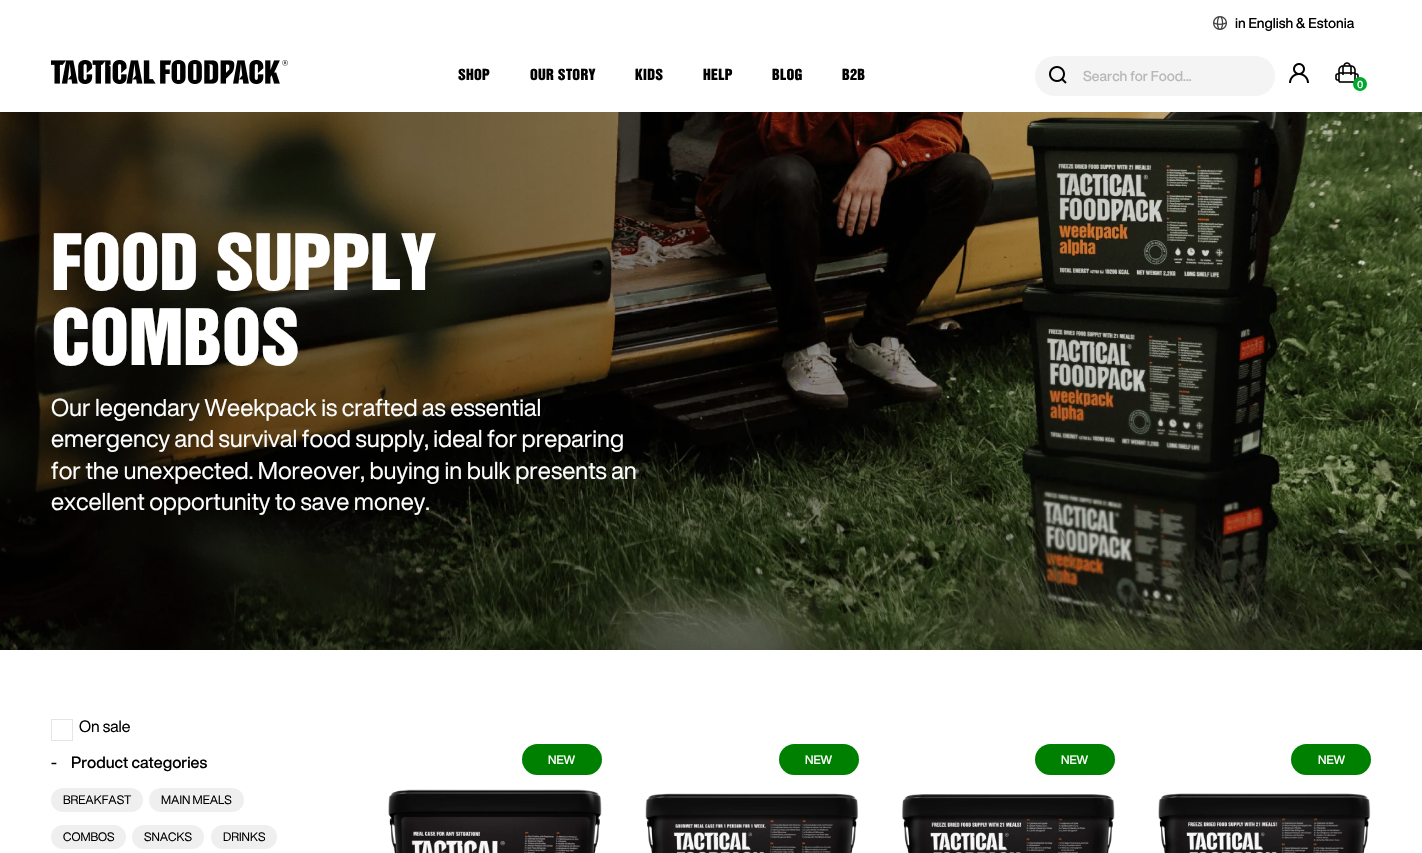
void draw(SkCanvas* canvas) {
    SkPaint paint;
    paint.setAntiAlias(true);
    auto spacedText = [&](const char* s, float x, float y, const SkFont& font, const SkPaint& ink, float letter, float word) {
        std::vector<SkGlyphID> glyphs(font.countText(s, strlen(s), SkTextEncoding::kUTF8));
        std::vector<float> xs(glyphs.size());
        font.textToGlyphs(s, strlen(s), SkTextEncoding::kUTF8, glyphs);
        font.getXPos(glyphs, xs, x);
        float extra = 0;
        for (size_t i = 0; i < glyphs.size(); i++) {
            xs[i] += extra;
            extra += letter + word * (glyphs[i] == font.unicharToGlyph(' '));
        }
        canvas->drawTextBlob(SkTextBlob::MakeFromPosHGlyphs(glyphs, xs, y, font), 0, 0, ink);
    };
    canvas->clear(0xFFFFFFFF);
    canvas->drawImageRect(SkImages::DeferredFromEncodedData(SkData::MakeFromFileName("img1.png")), SkRect::MakeXYWH(1213, 16, 14, 14), SkSamplingOptions());
    SkFont font1(fontMgr->matchFamilyStyle("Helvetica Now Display", SkFontStyle(500, SkFontStyle::kNormal_Width, SkFontStyle::kUpright_Slant)), 14);
    font1.setSubpixel(true);
    paint.setColor(0xFF000000);
    canvas->drawString("in English & Estonia", 1235, 28, font1, paint);
    canvas->drawImageRect(SkImages::DeferredFromEncodedData(SkData::MakeFromFileName("img2.png")), SkRect::MakeXYWH(51, 60, 237, 24), SkSamplingOptions());
    SkFont font2(fontMgr->matchFamilyStyle("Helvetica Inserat", SkFontStyle::Normal()), 14);
    font2.setSubpixel(true);
    spacedText("SHOP", 458, 80, font2, paint, 0.25f, 0);
    spacedText("OUR STORY", 530, 80, font2, paint, 0.25f, 0);
    spacedText("KIDS", 635, 80, font2, paint, 0.25f, 0);
    spacedText("HELP", 703, 80, font2, paint, 0.25f, 0);
    spacedText("BLOG", 772, 80, font2, paint, 0.25f, 0);
    spacedText("B2B", 842, 80, font2, paint, 0.25f, 0);
    paint.setColor(0xFFF4F4F4);
    canvas->drawRoundRect(SkRect::MakeXYWH(1035, 56, 240, 40), 20, 20, paint);
    canvas->drawImageRect(SkImages::DeferredFromEncodedData(SkData::MakeFromFileName("img3.png")), SkRect::MakeXYWH(1049, 66, 18, 18), SkSamplingOptions());
    paint.setColor(0xFFB8B8B8);
    canvas->drawString("Search for Food...", 1083, 81, font1, paint);
    canvas->drawImageRect(SkImages::DeferredFromEncodedData(SkData::MakeFromFileName("img4.png")), SkRect::MakeXYWH(1289, 63, 20, 20), SkSamplingOptions());
    canvas->drawImageRect(SkImages::DeferredFromEncodedData(SkData::MakeFromFileName("img5.png")), SkRect::MakeXYWH(1335, 62, 24, 21), SkSamplingOptions());
    paint.setColor(0xFF00A830);
    canvas->drawCircle(1360, 84, 7, paint);
    SkFont font3(fontMgr->matchFamilyStyle("Helvetica Now Display", SkFontStyle(500, SkFontStyle::kNormal_Width, SkFontStyle::kUpright_Slant)), 10);
    font3.setSubpixel(true);
    paint.setColor(0xFFFFFFFF);
    canvas->drawString("0", 1357, 88, font3, paint);
    canvas->drawImageRect(SkImages::DeferredFromEncodedData(SkData::MakeFromFileName("img6.png")), SkRect::MakeXYWH(0, 112, 1422, 538), SkSamplingOptions());
    SkFont font4(fontMgr->matchFamilyStyle("Helvetica Inserat", SkFontStyle::Normal()), 71);
    font4.setSubpixel(true);
    spacedText("FOOD SUPPLY", 51, 290, font4, paint, -0.75f, 0);
    spacedText("COMBOS", 51, 365, font4, paint, -0.75f, 0);
    SkFont font5(fontMgr->matchFamilyStyle("Helvetica Now Display", SkFontStyle::Normal()), 24);
    font5.setSubpixel(true);
    canvas->drawString("Our legendary Weekpack is crafted as essential", 51, 416, font5, paint);
    canvas->drawString("emergency and survival food supply, ideal for preparing", 51, 447, font5, paint);
    canvas->drawString("for the unexpected. Moreover, buying in bulk presents an", 51, 479, font5, paint);
    canvas->drawString("excellent opportunity to save money.", 51, 510, font5, paint);
    paint.setStyle(SkPaint::kStroke_Style);
    paint.setStrokeWidth(1);
    paint.setColor(0xFFE5E5E5);
    canvas->drawRect(SkRect::MakeXYWH(51.5f, 719.5f, 21, 21), paint);
    SkFont font6(fontMgr->matchFamilyStyle("Helvetica Now Display", SkFontStyle::Normal()), 16);
    font6.setSubpixel(true);
    paint.setStyle(SkPaint::kFill_Style);
    paint.setColor(0xFF000000);
    canvas->drawString("On sale", 79, 732, font6, paint);
    SkFont font7(fontMgr->matchFamilyStyle("Helvetica Now Display", SkFontStyle(500, SkFontStyle::kNormal_Width, SkFontStyle::kUpright_Slant)), 16);
    font7.setSubpixel(true);
    canvas->drawString("-", 51, 768, font7, paint);
    canvas->drawString("Product categories", 71, 768, font7, paint);
    paint.setColor(0xFFEFEFEF);
    canvas->drawRoundRect(SkRect::MakeXYWH(51, 788, 92, 24), 12, 12, paint);
    SkFont font8(fontMgr->matchFamilyStyle("Helvetica Now Display", SkFontStyle::Normal()), 12);
    font8.setSubpixel(true);
    paint.setColor(0xFF000000);
    canvas->drawString("BREAKFAST", 63, 804, font8, paint);
    paint.setColor(0xFFEFEFEF);
    canvas->drawRoundRect(SkRect::MakeXYWH(149, 788, 95, 24), 12, 12, paint);
    paint.setColor(0xFF000000);
    canvas->drawString("MAIN MEALS", 161, 804, font8, paint);
    paint.setColor(0xFFEFEFEF);
    canvas->drawRoundRect(SkRect::MakeXYWH(51, 825, 75, 24), 12, 12, paint);
    paint.setColor(0xFF000000);
    canvas->drawString("COMBOS", 63, 841, font8, paint);
    paint.setColor(0xFFEFEFEF);
    canvas->drawRoundRect(SkRect::MakeXYWH(132, 825, 72, 24), 12, 12, paint);
    paint.setColor(0xFF000000);
    canvas->drawString("SNACKS", 144, 841, font8, paint);
    paint.setColor(0xFFEFEFEF);
    canvas->drawRoundRect(SkRect::MakeXYWH(211, 825, 66, 24), 12, 12, paint);
    paint.setColor(0xFF000000);
    canvas->drawString("DRINKS", 223, 841, font8, paint);
    paint.setColor(0xFF008000);
    canvas->drawRoundRect(SkRect::MakeXYWH(522, 744, 80, 31), 15.5f, 15.5f, paint);
    SkFont font9(fontMgr->matchFamilyStyle("Helvetica Now Display", SkFontStyle(500, SkFontStyle::kNormal_Width, SkFontStyle::kUpright_Slant)), 12);
    font9.setSubpixel(true);
    paint.setColor(0xFFFFFFFF);
    canvas->drawString("NEW", 548, 764, font9, paint);
    canvas->drawImageRect(SkImages::DeferredFromEncodedData(SkData::MakeFromFileName("img7.png")), SkRect::MakeXYWH(388, 789, 214, 64), SkSamplingOptions());
    paint.setColor(0xFF008000);
    canvas->drawRoundRect(SkRect::MakeXYWH(779, 744, 80, 31), 15.5f, 15.5f, paint);
    paint.setColor(0xFFFFFFFF);
    canvas->drawString("NEW", 805, 764, font9, paint);
    canvas->drawImageRect(SkImages::DeferredFromEncodedData(SkData::MakeFromFileName("img8.png")), SkRect::MakeXYWH(645, 793, 214, 60), SkSamplingOptions());
    paint.setColor(0xFF008000);
    canvas->drawRoundRect(SkRect::MakeXYWH(1035, 744, 80, 31), 15.5f, 15.5f, paint);
    paint.setColor(0xFFFFFFFF);
    canvas->drawString("NEW", 1061, 764, font9, paint);
    canvas->drawImageRect(SkImages::DeferredFromEncodedData(SkData::MakeFromFileName("img9.png")), SkRect::MakeXYWH(902, 794, 213, 59), SkSamplingOptions());
    paint.setColor(0xFF008000);
    canvas->drawRoundRect(SkRect::MakeXYWH(1291, 744, 80, 31), 15.5f, 15.5f, paint);
    paint.setColor(0xFFFFFFFF);
    canvas->drawString("NEW", 1318, 764, font9, paint);
    canvas->drawImageRect(SkImages::DeferredFromEncodedData(SkData::MakeFromFileName("img10.png")), SkRect::MakeXYWH(1158, 793, 213, 60), SkSamplingOptions());
}
